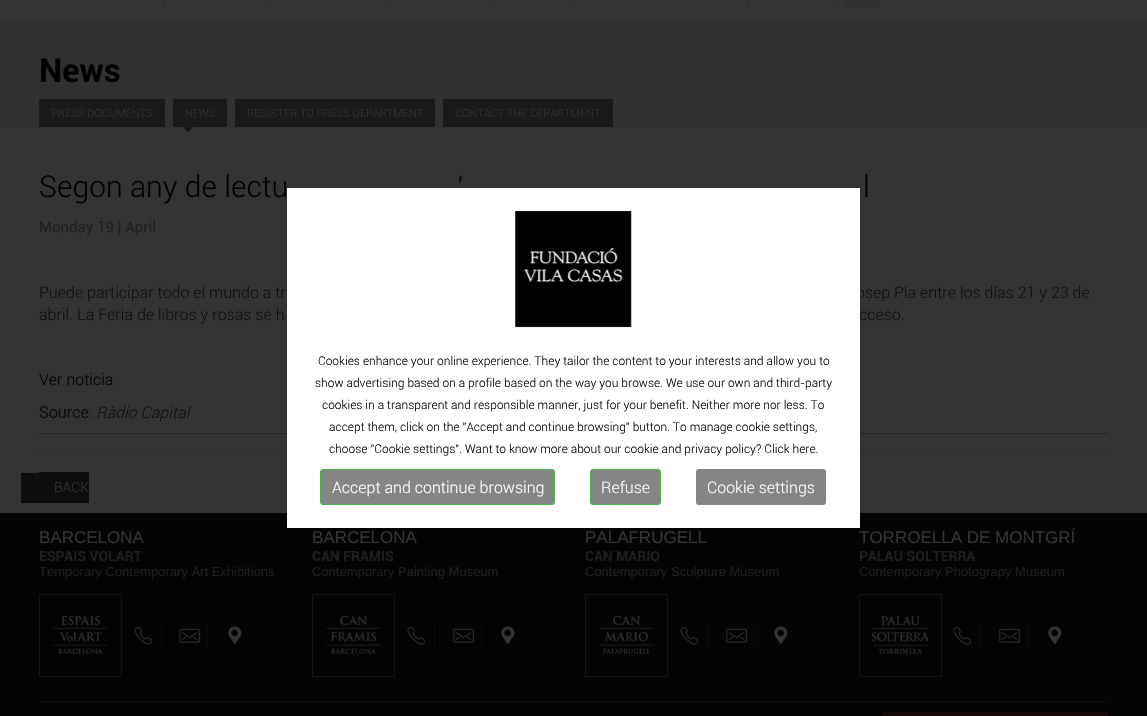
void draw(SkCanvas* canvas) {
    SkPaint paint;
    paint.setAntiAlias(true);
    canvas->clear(0xFF333333);
    paint.setColor(0xFF2D2D2D);
    canvas->drawRect(SkRect::MakeXYWH(163, 0, 1, 7), paint);
    canvas->drawRect(SkRect::MakeXYWH(266, 0, 1, 7), paint);
    canvas->drawRect(SkRect::MakeXYWH(386, 0, 1, 7), paint);
    canvas->drawRect(SkRect::MakeXYWH(493, 0, 1, 7), paint);
    canvas->drawRect(SkRect::MakeXYWH(573, 0, 1, 7), paint);
    canvas->drawRect(SkRect::MakeXYWH(748, 0, 1, 7), paint);
    canvas->drawRect(SkRect::MakeXYWH(838, 0, 1, 7), paint);
    paint.setColor(0xFF303030);
    canvas->drawRect(SkRect::MakeXYWH(842, 0, 38, 7), paint);
    canvas->drawRect(SkRect::MakeXYWH(0, 19, 1147, 109), paint);
    SkFont font1(fontMgr->matchFamilyStyle("Roboto", SkFontStyle::Bold()), 33);
    font1.setSubpixel(true);
    paint.setColor(0xFF000000);
    canvas->drawString("News", 39, 82, font1, paint);
    paint.setColor(0xFF1A1A1A);
    canvas->drawRect(SkRect::MakeXYWH(39, 99, 126, 28), paint);
    SkFont font2(fontMgr->matchFamilyStyle("Roboto", SkFontStyle(300, SkFontStyle::kNormal_Width, SkFontStyle::kUpright_Slant)), 11);
    font2.setSubpixel(true);
    paint.setColor(0xFF333333);
    canvas->drawString("PRESS DOCUMENTS", 51, 117, font2, paint);
    paint.setColor(0xFF1A1A1A);
    canvas->drawRect(SkRect::MakeXYWH(173, 99, 54, 28), paint);
    paint.setColor(0xFF333333);
    canvas->drawString("NEWS", 185, 117, font2, paint);
    paint.setColor(0xFF0B1721);
    canvas->drawPath(SkPathBuilder().moveTo(183, 127).lineTo(193, 127).lineTo(188, 132).close().detach(), paint);
    paint.setColor(0xFF1A1A1A);
    canvas->drawRect(SkRect::MakeXYWH(235, 99, 200, 28), paint);
    paint.setColor(0xFF333333);
    canvas->drawString("REGISTER TO PRESS DEPARTMENT", 247, 117, font2, paint);
    paint.setColor(0xFF1A1A1A);
    canvas->drawRect(SkRect::MakeXYWH(443, 99, 170, 28), paint);
    paint.setColor(0xFF333333);
    canvas->drawString("CONTACT THE DEPARTMENT", 455, 117, font2, paint);
    SkFont font3(fontMgr->matchFamilyStyle("Roboto", SkFontStyle(300, SkFontStyle::kNormal_Width, SkFontStyle::kUpright_Slant)), 30);
    font3.setSubpixel(true);
    paint.setColor(0xFF000000);
    canvas->drawString("Segon any de lectu", 39, 197, font3, paint);
    canvas->drawString("’", 457, 197, font3, paint);
    canvas->drawString("l", 863, 197, font3, paint);
    SkFont font4(fontMgr->matchFamilyStyle("Roboto", SkFontStyle::Normal()), 15);
    font4.setSubpixel(true);
    paint.setColor(0xFF1E1E1E);
    canvas->drawString("Monday 19 | April", 39, 232, font4, paint);
    SkFont font5(fontMgr->matchFamilyStyle("Roboto", SkFontStyle(300, SkFontStyle::kNormal_Width, SkFontStyle::kUpright_Slant)), 16);
    font5.setSubpixel(true);
    paint.setColor(0xFF0E0E0E);
    canvas->drawString("Puede participar todo el mundo a tr", 39, 298, font5, paint);
    canvas->drawString("osep Pla entre los días 21 y 23 de", 856, 298, font5, paint);
    canvas->drawString("abril. La Feria de libros y rosas se h", 39, 320, font5, paint);
    canvas->drawString("cceso.", 859, 320, font5, paint);
    paint.setColor(0xFF000000);
    canvas->drawString("Ver noticia", 39, 385, font5, paint);
    SkFont font6(fontMgr->matchFamilyStyle("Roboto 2", SkFontStyle::Bold()), 16);
    font6.setSubpixel(true);
    paint.setColor(0xFF0E0E0E);
    canvas->drawString("Source", 39, 418, font6, paint);
    canvas->drawString(":", 89, 418, font5, paint);
    SkFont font7(fontMgr->matchFamilyStyle("Roboto", SkFontStyle(300, SkFontStyle::kNormal_Width, SkFontStyle::kItalic_Slant)), 16);
    font7.setSubpixel(true);
    canvas->drawString("Ràdio Capital", 96, 418, font7, paint);
    paint.setColor(0xFF242526);
    canvas->drawRect(SkRect::MakeXYWH(39, 433, 1069, 1), paint);
    paint.setColor(0xFF303030);
    canvas->drawRect(SkRect::MakeXYWH(39, 454, 1069, 1), paint);
    paint.setColor(0xFF0E0E0E);
    canvas->drawRect(SkRect::MakeXYWH(39, 472, 50, 31), paint);
    SkFont font8(fontMgr->matchFamilyStyle("Roboto", SkFontStyle(300, SkFontStyle::kNormal_Width, SkFontStyle::kUpright_Slant)), 14);
    font8.setSubpixel(true);
    paint.setColor(0xFF333333);
    canvas->drawString("BACK", 54, 492, font8, paint);
    paint.setColor(0xFF0E0E0E);
    canvas->drawRect(SkRect::MakeXYWH(21, 473, 18, 30), paint);
    paint.setColor(0xFF030303);
    canvas->drawRect(SkRect::MakeXYWH(0, 513, 1147, 203), paint);
    paint.setColor(0xFFFFFFFF);
    canvas->drawRect(SkRect::MakeXYWH(287, 188, 573, 340), paint);
    canvas->drawImageRect(SkImages::DeferredFromEncodedData(SkData::MakeFromFileName("img1.png")), SkRect::MakeXYWH(515, 211, 117, 117), SkSamplingOptions());
    SkFont font9(fontMgr->matchFamilyStyle("Roboto", SkFontStyle(300, SkFontStyle::kNormal_Width, SkFontStyle::kUpright_Slant)), 12);
    font9.setSubpixel(true);
    paint.setColor(0xFF000000);
    canvas->drawString("Cookies enhance your online experience. They tailor the content to your interests and allow you to", 318, 365, font9, paint);
    canvas->drawString("show advertising based on a profile based on the way you browse. We use our own and third-party", 315, 387, font9, paint);
    canvas->drawString("cookies in a transparent and responsible manner, just for your benefit. Neither more nor less. To", 322, 409, font9, paint);
    canvas->drawString("accept them, click on the \"Accept and continue browsing\" button. To manage cookie settings,", 329, 431, font9, paint);
    canvas->drawString("choose \"Cookie settings\". Want to know more about our cookie and privacy policy? Click here.", 329, 453, font9, paint);
    paint.setColor(0xFF858585);
    canvas->drawRoundRect(SkRect::MakeXYWH(320.5f, 469.5f, 234, 35), 2.5f, 2.5f, paint);
    paint.setStyle(SkPaint::kStroke_Style);
    paint.setStrokeWidth(1);
    paint.setColor(0xFF4CAE4C);
    canvas->drawRoundRect(SkRect::MakeXYWH(320.5f, 469.5f, 234, 35), 2.5f, 2.5f, paint);
    paint.setStyle(SkPaint::kFill_Style);
    paint.setColor(0xFFFFFFFF);
    canvas->drawString("Accept and continue browsing", 332, 493, font5, paint);
    paint.setColor(0xFF858585);
    canvas->drawRoundRect(SkRect::MakeXYWH(590.5f, 469.5f, 70, 35), 2.5f, 2.5f, paint);
    paint.setStyle(SkPaint::kStroke_Style);
    paint.setColor(0xFF4CAE4C);
    canvas->drawRoundRect(SkRect::MakeXYWH(590.5f, 469.5f, 70, 35), 2.5f, 2.5f, paint);
    paint.setStyle(SkPaint::kFill_Style);
    paint.setColor(0xFFFFFFFF);
    canvas->drawString("Refuse", 601, 493, font5, paint);
    paint.setColor(0xFF858585);
    canvas->drawRoundRect(SkRect::MakeXYWH(696, 469, 130, 36), 3, 3, paint);
    paint.setColor(0xFFFFFFFF);
    canvas->drawString("Cookie settings", 707, 493, font5, paint);
    SkFont font10(fontMgr->matchFamilyStyle("Liberation Sans", SkFontStyle::Normal()), 17);
    font10.setSubpixel(true);
    paint.setColor(0xFF333333);
    canvas->drawString("BARCELONA", 39, 543, font10, paint);
    SkFont font11(fontMgr->matchFamilyStyle("Roboto", SkFontStyle::Bold()), 14);
    font11.setSubpixel(true);
    paint.setColor(0xFF1E1E1E);
    canvas->drawString("ESPAIS VOLART", 39, 561, font11, paint);
    SkFont font12(fontMgr->matchFamilyStyle("Liberation Sans", SkFontStyle::Normal()), 13);
    font12.setSubpixel(true);
    canvas->drawString("Temporary Contemporary Art Exhibitions", 39, 576, font12, paint);
    canvas->drawImageRect(SkImages::DeferredFromEncodedData(SkData::MakeFromFileName("img2.png")), SkRect::MakeXYWH(39, 594, 83, 83), SkSamplingOptions());
    canvas->drawImageRect(SkImages::DeferredFromEncodedData(SkData::MakeFromFileName("img3.png")), SkRect::MakeXYWH(134, 622, 28, 27), SkSamplingOptions());
    canvas->drawImageRect(SkImages::DeferredFromEncodedData(SkData::MakeFromFileName("img4.png")), SkRect::MakeXYWH(179, 622, 29, 27), SkSamplingOptions());
    canvas->drawImageRect(SkImages::DeferredFromEncodedData(SkData::MakeFromFileName("img5.png")), SkRect::MakeXYWH(228, 626, 14, 19), SkSamplingOptions());
    paint.setColor(0xFF333333);
    canvas->drawString("BARCELONA", 312, 543, font10, paint);
    paint.setColor(0xFF1E1E1E);
    canvas->drawString("CAN FRAMIS", 312, 561, font11, paint);
    canvas->drawString("Contemporary Painting Museum", 312, 576, font12, paint);
    canvas->drawImageRect(SkImages::DeferredFromEncodedData(SkData::MakeFromFileName("img6.png")), SkRect::MakeXYWH(312, 594, 83, 83), SkSamplingOptions());
    canvas->drawImageRect(SkImages::DeferredFromEncodedData(SkData::MakeFromFileName("img3.png")), SkRect::MakeXYWH(407, 622, 28, 27), SkSamplingOptions());
    canvas->drawImageRect(SkImages::DeferredFromEncodedData(SkData::MakeFromFileName("img4.png")), SkRect::MakeXYWH(453, 622, 29, 27), SkSamplingOptions());
    canvas->drawImageRect(SkImages::DeferredFromEncodedData(SkData::MakeFromFileName("img5.png")), SkRect::MakeXYWH(501, 626, 14, 19), SkSamplingOptions());
    paint.setColor(0xFF333333);
    canvas->drawString("PALAFRUGELL", 585, 543, font10, paint);
    paint.setColor(0xFF1E1E1E);
    canvas->drawString("CAN MARIO", 585, 561, font11, paint);
    canvas->drawString("Contemporary Sculpture Museum", 585, 576, font12, paint);
    canvas->drawImageRect(SkImages::DeferredFromEncodedData(SkData::MakeFromFileName("img7.png")), SkRect::MakeXYWH(585, 594, 83, 83), SkSamplingOptions());
    canvas->drawImageRect(SkImages::DeferredFromEncodedData(SkData::MakeFromFileName("img3.png")), SkRect::MakeXYWH(680, 622, 28, 27), SkSamplingOptions());
    canvas->drawImageRect(SkImages::DeferredFromEncodedData(SkData::MakeFromFileName("img4.png")), SkRect::MakeXYWH(726, 622, 29, 27), SkSamplingOptions());
    canvas->drawImageRect(SkImages::DeferredFromEncodedData(SkData::MakeFromFileName("img5.png")), SkRect::MakeXYWH(774, 626, 14, 19), SkSamplingOptions());
    paint.setColor(0xFF333333);
    canvas->drawString("TORROELLA DE MONTGRÍ", 859, 543, font10, paint);
    paint.setColor(0xFF1E1E1E);
    canvas->drawString("PALAU SOLTERRA", 859, 561, font11, paint);
    canvas->drawString("Contemporary Photograpy Museum", 859, 576, font12, paint);
    canvas->drawImageRect(SkImages::DeferredFromEncodedData(SkData::MakeFromFileName("img8.png")), SkRect::MakeXYWH(859, 594, 83, 83), SkSamplingOptions());
    canvas->drawImageRect(SkImages::DeferredFromEncodedData(SkData::MakeFromFileName("img3.png")), SkRect::MakeXYWH(953, 622, 28, 27), SkSamplingOptions());
    canvas->drawImageRect(SkImages::DeferredFromEncodedData(SkData::MakeFromFileName("img4.png")), SkRect::MakeXYWH(999, 622, 29, 27), SkSamplingOptions());
    canvas->drawImageRect(SkImages::DeferredFromEncodedData(SkData::MakeFromFileName("img5.png")), SkRect::MakeXYWH(1048, 626, 14, 19), SkSamplingOptions());
    paint.setColor(0xFF0F0F0F);
    canvas->drawRect(SkRect::MakeXYWH(39, 701, 1069, 1), paint);
    paint.setColor(0xFF170909);
    canvas->drawRect(SkRect::MakeXYWH(882, 712, 226, 4), paint);
}
